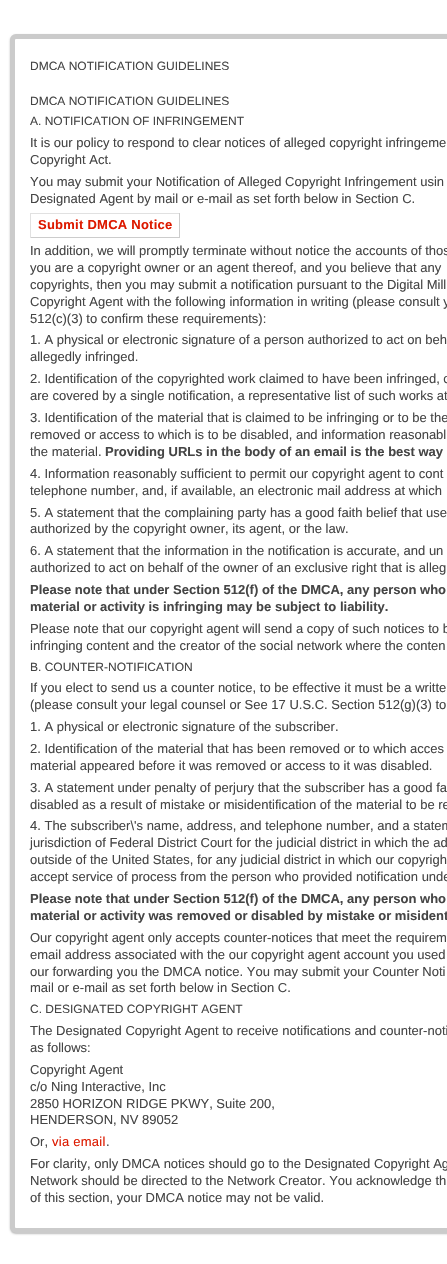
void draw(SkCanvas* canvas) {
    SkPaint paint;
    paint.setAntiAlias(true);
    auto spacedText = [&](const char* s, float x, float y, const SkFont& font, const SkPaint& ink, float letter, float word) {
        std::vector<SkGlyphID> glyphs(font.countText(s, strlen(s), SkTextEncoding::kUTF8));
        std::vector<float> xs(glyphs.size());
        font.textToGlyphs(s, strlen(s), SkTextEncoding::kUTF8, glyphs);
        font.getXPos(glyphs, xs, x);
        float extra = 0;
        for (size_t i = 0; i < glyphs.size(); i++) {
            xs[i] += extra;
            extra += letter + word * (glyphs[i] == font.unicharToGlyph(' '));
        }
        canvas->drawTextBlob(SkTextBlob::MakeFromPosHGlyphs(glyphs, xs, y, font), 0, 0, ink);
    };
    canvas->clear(0xFFFFFFFF);
    paint.setColor(0xFFBBBBBB);
    paint.setMaskFilter(SkMaskFilter::MakeBlur(kNormal_SkBlurStyle, 1));
    canvas->drawRoundRect(SkRect::MakeXYWH(10, 35, 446, 1199), 6, 6, paint);
    paint.setMaskFilter(nullptr);
    paint.setColor(0xFFFFFFFF);
    canvas->drawRoundRect(SkRect::MakeXYWH(12.5f, 36.5f, 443, 1194), 3.5f, 3.5f, paint);
    paint.setStyle(SkPaint::kStroke_Style);
    paint.setStrokeWidth(5);
    paint.setColor(0xFFCBCBCB);
    canvas->drawRoundRect(SkRect::MakeXYWH(12.5f, 36.5f, 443, 1194), 3.5f, 3.5f, paint);
    SkFont font1(fontMgr->matchFamilyStyle("Liberation Sans", SkFontStyle::Normal()), 12);
    font1.setSubpixel(true);
    paint.setStyle(SkPaint::kFill_Style);
    paint.setColor(0xFF454545);
    canvas->drawString("DMCA NOTIFICATION GUIDELINES", 30, 70, font1, paint);
    canvas->drawString("DMCA NOTIFICATION GUIDELINES", 30, 105, font1, paint);
    canvas->drawString("A. NOTIFICATION OF INFRINGEMENT", 30, 125, font1, paint);
    SkFont font2(fontMgr->matchFamilyStyle("Liberation Sans", SkFontStyle::Normal()), 13);
    font2.setSubpixel(true);
    canvas->drawString("It is our policy to respond to clear notices of alleged copyright infringeme", 30, 147, font2, paint);
    canvas->drawString("Copyright Act.", 30, 164, font2, paint);
    canvas->drawString("You may submit your Notification of Alleged Copyright Infringement usin", 30, 186, font2, paint);
    canvas->drawString("Designated Agent by mail or e-mail as set forth below in Section C.", 30, 203, font2, paint);
    paint.setColor(0xFFE1E1E1);
    canvas->drawRect(SkRect::MakeXYWH(30, 213, 150, 1), paint);
    paint.setColor(0xFFCCCCCC);
    canvas->drawRect(SkRect::MakeXYWH(179, 213, 1, 25), paint);
    canvas->drawRect(SkRect::MakeXYWH(30, 237, 150, 1), paint);
    paint.setColor(0xFFE1E1E1);
    canvas->drawRect(SkRect::MakeXYWH(30, 213, 1, 25), paint);
    SkFont font3(fontMgr->matchFamilyStyle("Liberation Sans", SkFontStyle::Bold()), 13);
    font3.setSubpixel(true);
    paint.setColor(0xFFDD1A00);
    spacedText("Submit DMCA Notice", 38, 229, font3, paint, 0.25f, 0);
    paint.setColor(0xFF454545);
    canvas->drawString("In addition, we will promptly terminate without notice the accounts of thos", 30, 255, font2, paint);
    canvas->drawString("you are a copyright owner or an agent thereof, and you believe that any", 30, 272, font2, paint);
    canvas->drawString("copyrights, then you may submit a notification pursuant to the Digital Mill", 30, 289, font2, paint);
    canvas->drawString("Copyright Agent with the following information in writing (please consult y", 30, 306, font2, paint);
    canvas->drawString("512(c)(3) to confirm these requirements):", 30, 323, font2, paint);
    canvas->drawString("1. A physical or electronic signature of a person authorized to act on beh", 30, 344, font2, paint);
    canvas->drawString("allegedly infringed.", 30, 361, font2, paint);
    canvas->drawString("2. Identification of the copyrighted work claimed to have been infringed, o", 30, 383, font2, paint);
    canvas->drawString("are covered by a single notification, a representative list of such works at", 30, 400, font2, paint);
    canvas->drawString("3. Identification of the material that is claimed to be infringing or to be the", 30, 422, font2, paint);
    canvas->drawString("removed or access to which is to be disabled, and information reasonabl", 30, 439, font2, paint);
    canvas->drawString("the material.", 30, 456, font2, paint);
    canvas->drawString("Providing URLs in the body of an email is the best way", 105, 456, font3, paint);
    canvas->drawString("4. Information reasonably sufficient to permit our copyright agent to cont", 30, 478, font2, paint);
    canvas->drawString("telephone number, and, if available, an electronic mail address at which", 30, 495, font2, paint);
    canvas->drawString("5. A statement that the complaining party has a good faith belief that use", 30, 517, font2, paint);
    canvas->drawString("authorized by the copyright owner, its agent, or the law.", 30, 533, font2, paint);
    canvas->drawString("6. A statement that the information in the notification is accurate, and un", 30, 555, font2, paint);
    canvas->drawString("authorized to act on behalf of the owner of an exclusive right that is alleg", 30, 572, font2, paint);
    canvas->drawString("Please note that under Section 512(f) of the DMCA, any person who", 30, 594, font3, paint);
    canvas->drawString("material or activity is infringing may be subject to liability.", 30, 611, font3, paint);
    canvas->drawString("Please note that our copyright agent will send a copy of such notices to b", 30, 633, font2, paint);
    canvas->drawString("infringing content and the creator of the social network where the conten", 30, 650, font2, paint);
    canvas->drawString("B. COUNTER-NOTIFICATION", 30, 671, font1, paint);
    canvas->drawString("If you elect to send us a counter notice, to be effective it must be a writte", 30, 692, font2, paint);
    canvas->drawString("(please consult your legal counsel or See 17 U.S.C. Section 512(g)(3) to", 30, 709, font2, paint);
    canvas->drawString("1. A physical or electronic signature of the subscriber.", 30, 731, font2, paint);
    canvas->drawString("2. Identification of the material that has been removed or to which acces", 30, 753, font2, paint);
    canvas->drawString("material appeared before it was removed or access to it was disabled.", 30, 770, font2, paint);
    canvas->drawString("3. A statement under penalty of perjury that the subscriber has a good fa", 30, 792, font2, paint);
    canvas->drawString("disabled as a result of mistake or misidentification of the material to be re", 30, 809, font2, paint);
    canvas->drawString("4. The subscriber\\'s name, address, and telephone number, and a statem", 30, 830, font2, paint);
    canvas->drawString("jurisdiction of Federal District Court for the judicial district in which the ad", 30, 847, font2, paint);
    canvas->drawString("outside of the United States, for any judicial district in which our copyrigh", 30, 864, font2, paint);
    canvas->drawString("accept service of process from the person who provided notification unde", 30, 881, font2, paint);
    canvas->drawString("Please note that under Section 512(f) of the DMCA, any person who", 30, 903, font3, paint);
    canvas->drawString("material or activity was removed or disabled by mistake or misident", 30, 920, font3, paint);
    canvas->drawString("Our copyright agent only accepts counter-notices that meet the requirem", 30, 942, font2, paint);
    canvas->drawString("email address associated with the our copyright agent account you used", 30, 959, font2, paint);
    canvas->drawString("our forwarding you the DMCA notice. You may submit your Counter Noti", 30, 976, font2, paint);
    canvas->drawString("mail or e-mail as set forth below in Section C.", 30, 992, font2, paint);
    canvas->drawString("C. DESIGNATED COPYRIGHT AGENT", 30, 1013, font1, paint);
    canvas->drawString("The Designated Copyright Agent to receive notifications and counter-noti", 30, 1035, font2, paint);
    canvas->drawString("as follows:", 30, 1052, font2, paint);
    canvas->drawString("Copyright Agent", 30, 1074, font2, paint);
    canvas->drawString("c/o Ning Interactive, Inc", 30, 1091, font2, paint);
    canvas->drawString("2850 HORIZON RIDGE PKWY, Suite 200,", 30, 1108, font2, paint);
    canvas->drawString("HENDERSON, NV 89052", 30, 1124, font2, paint);
    canvas->drawString("Or,", 30, 1146, font2, paint);
    paint.setColor(0xFFDD1A00);
    spacedText("via email", 52, 1146, font2, paint, 0.25f, 0);
    paint.setColor(0xFF454545);
    canvas->drawString(".", 106, 1146, font2, paint);
    canvas->drawString("For clarity, only DMCA notices should go to the Designated Copyright Ag", 30, 1168, font2, paint);
    canvas->drawString("Network should be directed to the Network Creator. You acknowledge th", 30, 1185, font2, paint);
    canvas->drawString("of this section, your DMCA notice may not be valid.", 30, 1202, font2, paint);
}
